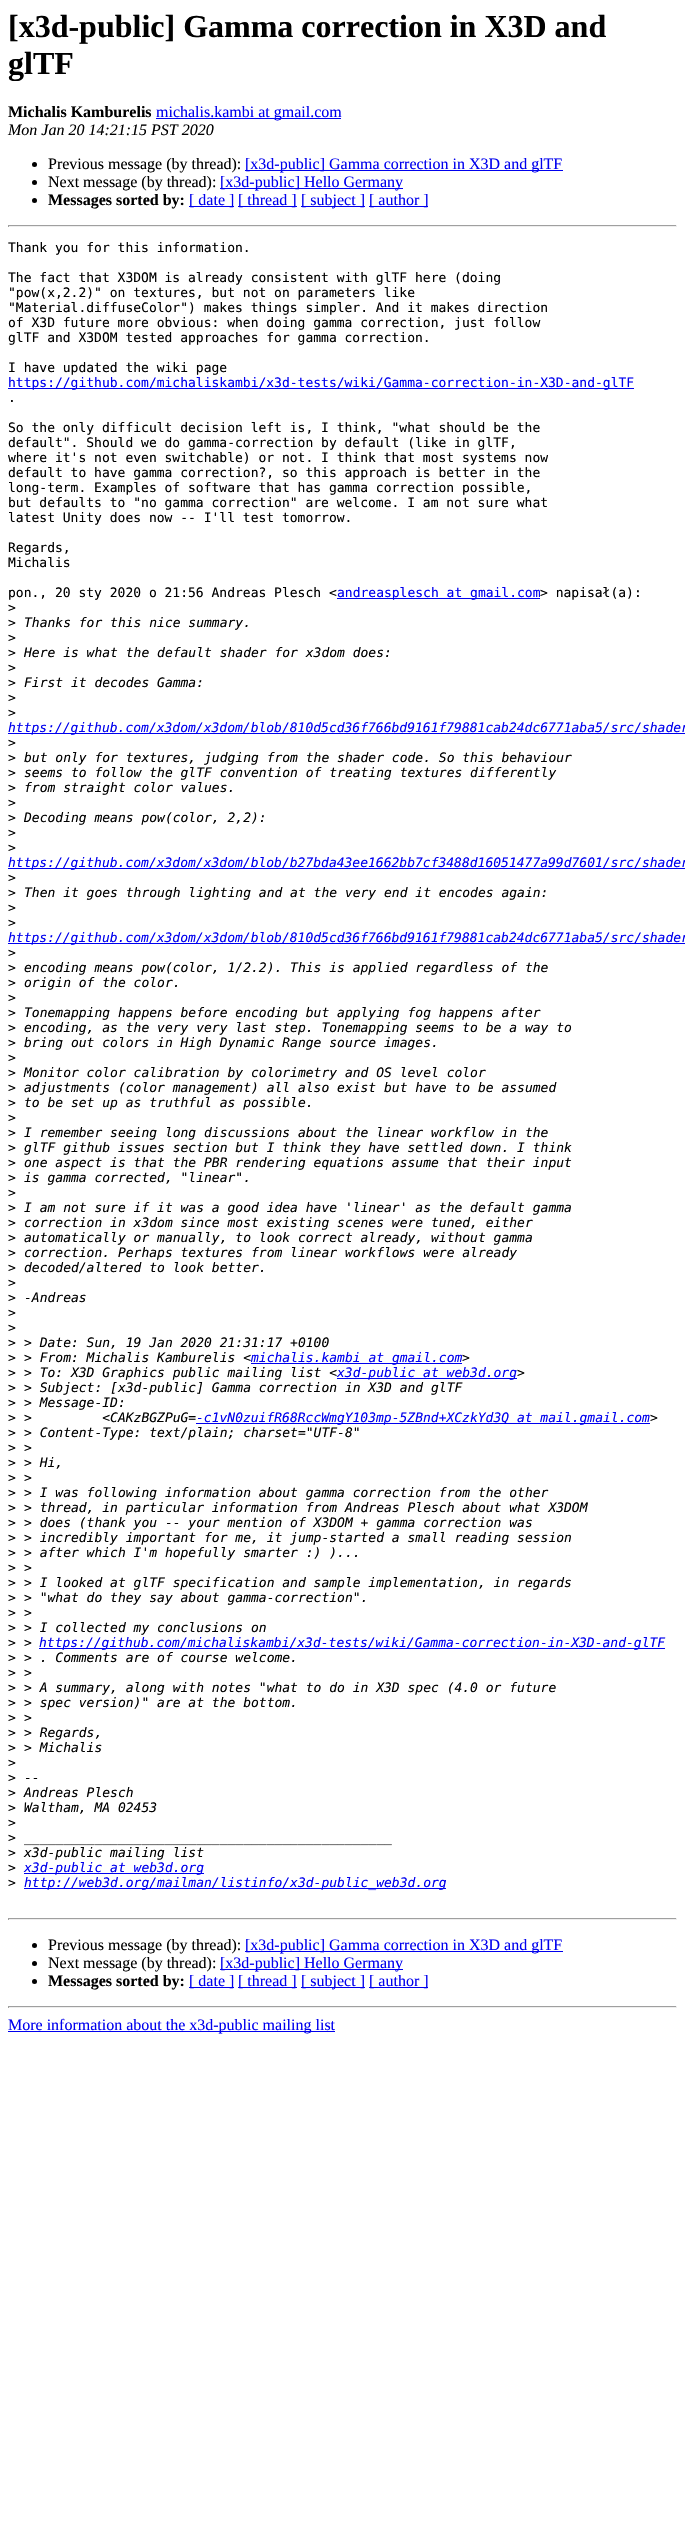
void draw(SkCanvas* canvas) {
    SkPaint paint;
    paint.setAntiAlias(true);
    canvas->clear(0xFFFFFFFF);
    SkFont font1(fontMgr->matchFamilyStyle("Liberation Serif", SkFontStyle::Bold()), 32);
    font1.setSubpixel(true);
    paint.setColor(0xFF000000);
    canvas->drawString("[x3d-public] Gamma correction in X3D and", 8, 37, font1, paint);
    canvas->drawString("glTF", 8, 74, font1, paint);
    SkFont font2(fontMgr->matchFamilyStyle("Liberation Serif", SkFontStyle::Bold()), 16);
    font2.setSubpixel(true);
    canvas->drawString("Michalis Kamburelis", 8, 117, font2, paint);
    paint.setColor(0xFF0000EE);
    canvas->drawRect(SkRect::MakeXYWH(156, 118, 185, 1), paint);
    SkFont font3(fontMgr->matchFamilyStyle("Liberation Serif", SkFontStyle::Normal()), 16);
    font3.setSubpixel(true);
    canvas->drawString("michalis.kambi at gmail.com", 156, 117, font3, paint);
    SkFont font4(fontMgr->matchFamilyStyle("Liberation Serif", SkFontStyle::Italic()), 16);
    font4.setSubpixel(true);
    paint.setColor(0xFF000000);
    canvas->drawString("Mon Jan 20 14:21:15 PST 2020", 8, 135, font4, paint);
    canvas->drawCircle(34.5f, 164.5f, 2.5f, paint);
    canvas->drawString("Previous message (by thread):", 48, 169, font3, paint);
    paint.setColor(0xFF0000EE);
    canvas->drawRect(SkRect::MakeXYWH(245, 170, 318, 1), paint);
    canvas->drawString("[x3d-public] Gamma correction in X3D and glTF", 245, 169, font3, paint);
    paint.setColor(0xFF000000);
    canvas->drawCircle(34.5f, 182.5f, 2.5f, paint);
    canvas->drawString("Next message (by thread):", 48, 187, font3, paint);
    paint.setColor(0xFF0000EE);
    canvas->drawRect(SkRect::MakeXYWH(220, 188, 183, 1), paint);
    canvas->drawString("[x3d-public] Hello Germany", 220, 187, font3, paint);
    paint.setColor(0xFF000000);
    canvas->drawCircle(34.5f, 200.5f, 2.5f, paint);
    canvas->drawString("Messages sorted by:", 48, 205, font2, paint);
    paint.setColor(0xFF0000EE);
    canvas->drawRect(SkRect::MakeXYWH(189, 206, 45, 1), paint);
    canvas->drawString("[ date ]", 189, 205, font3, paint);
    canvas->drawRect(SkRect::MakeXYWH(238, 206, 59, 1), paint);
    canvas->drawString("[ thread ]", 238, 205, font3, paint);
    canvas->drawRect(SkRect::MakeXYWH(301, 206, 64, 1), paint);
    canvas->drawString("[ subject ]", 301, 205, font3, paint);
    canvas->drawRect(SkRect::MakeXYWH(369, 206, 59, 1), paint);
    canvas->drawString("[ author ]", 369, 205, font3, paint);
    paint.setColor(0xFF9F9F9F);
    canvas->drawRect(SkRect::MakeXYWH(8, 225, 669, 1), paint);
    paint.setColor(0xFFEEEEEE);
    canvas->drawRect(SkRect::MakeXYWH(676, 225, 1, 2), paint);
    canvas->drawRect(SkRect::MakeXYWH(8, 226, 669, 1), paint);
    paint.setColor(0xFF9F9F9F);
    canvas->drawRect(SkRect::MakeXYWH(8, 225, 1, 2), paint);
    SkFont font5(fontMgr->matchFamilyStyle("DejaVu Sans Mono", SkFontStyle::Normal()), 13);
    font5.setSubpixel(true);
    paint.setColor(0xFF000000);
    canvas->drawString("Thank you for this information.", 8, 252, font5, paint);
    canvas->drawString("The fact that X3DOM is already consistent with glTF here (doing", 8, 282, font5, paint);
    canvas->drawString("\"pow(x,2.2)\" on textures, but not on parameters like", 8, 297, font5, paint);
    canvas->drawString("\"Material.diffuseColor\") makes things simpler. And it makes direction", 8, 312, font5, paint);
    canvas->drawString("of X3D future more obvious: when doing gamma correction, just follow", 8, 327, font5, paint);
    canvas->drawString("glTF and X3DOM tested approaches for gamma correction.", 8, 342, font5, paint);
    canvas->drawString("I have updated the wiki page", 8, 372, font5, paint);
    paint.setColor(0xFF0000EE);
    canvas->drawRect(SkRect::MakeXYWH(8, 388, 626, 1), paint);
    canvas->drawString("https://github.com/michaliskambi/x3d-tests/wiki/Gamma-correction-in-X3D-and-glTF", 8, 387, font5, paint);
    paint.setColor(0xFF000000);
    canvas->drawString(".", 8, 402, font5, paint);
    canvas->drawString("So the only difficult decision left is, I think, \"what should be the", 8, 432, font5, paint);
    canvas->drawString("default\". Should we do gamma-correction by default (like in glTF,", 8, 447, font5, paint);
    canvas->drawString("where it's not even switchable) or not. I think that most systems now", 8, 462, font5, paint);
    canvas->drawString("default to have gamma correction?, so this approach is better in the", 8, 477, font5, paint);
    canvas->drawString("long-term. Examples of software that has gamma correction possible,", 8, 492, font5, paint);
    canvas->drawString("but defaults to \"no gamma correction\" are welcome. I am not sure what", 8, 507, font5, paint);
    canvas->drawString("latest Unity does now -- I'll test tomorrow.", 8, 522, font5, paint);
    canvas->drawString("Regards,", 8, 552, font5, paint);
    canvas->drawString("Michalis", 8, 567, font5, paint);
    canvas->drawString("pon., 20 sty 2020 o 21:56 Andreas Plesch <", 8, 597, font5, paint);
    paint.setColor(0xFF0000EE);
    canvas->drawRect(SkRect::MakeXYWH(337, 598, 203, 1), paint);
    canvas->drawString("andreasplesch at gmail.com", 337, 597, font5, paint);
    paint.setColor(0xFF000000);
    canvas->drawString("> napisał(a):", 540, 597, font5, paint);
    canvas->drawString(">", 8, 612, font5, paint);
    canvas->drawString(">", 8, 627, font5, paint);
    SkFont font6(fontMgr->matchFamilyStyle("DejaVu Sans Mono", SkFontStyle::Italic()), 13);
    font6.setSubpixel(true);
    canvas->drawString("Thanks for this nice summary.", 24, 627, font6, paint);
    canvas->drawString(">", 8, 642, font5, paint);
    canvas->drawString(">", 8, 657, font5, paint);
    canvas->drawString("Here is what the default shader for x3dom does:", 24, 657, font6, paint);
    canvas->drawString(">", 8, 672, font5, paint);
    canvas->drawString(">", 8, 687, font5, paint);
    canvas->drawString("First it decodes Gamma:", 24, 687, font6, paint);
    canvas->drawString(">", 8, 702, font5, paint);
    canvas->drawString(">", 8, 717, font5, paint);
    paint.setColor(0xFF0000EE);
    canvas->drawRect(SkRect::MakeXYWH(8, 733, 677, 1), paint);
    canvas->drawString("https://github.com/x3dom/x3dom/blob/810d5cd36f766bd9161f79881cab24dc6771aba5/src/shader", 8, 732, font6, paint);
    paint.setColor(0xFF000000);
    canvas->drawString(">", 8, 747, font5, paint);
    canvas->drawString(">", 8, 762, font5, paint);
    canvas->drawString("but only for textures, judging from the shader code. So this behaviour", 24, 762, font6, paint);
    canvas->drawString(">", 8, 777, font5, paint);
    canvas->drawString("seems to follow the glTF convention of treating textures differently", 24, 777, font6, paint);
    canvas->drawString(">", 8, 792, font5, paint);
    canvas->drawString("from straight color values.", 24, 792, font6, paint);
    canvas->drawString(">", 8, 807, font5, paint);
    canvas->drawString(">", 8, 822, font5, paint);
    canvas->drawString("Decoding means pow(color, 2,2):", 24, 822, font6, paint);
    canvas->drawString(">", 8, 837, font5, paint);
    canvas->drawString(">", 8, 852, font5, paint);
    paint.setColor(0xFF0000EE);
    canvas->drawRect(SkRect::MakeXYWH(8, 868, 677, 1), paint);
    canvas->drawString("https://github.com/x3dom/x3dom/blob/b27bda43ee1662bb7cf3488d16051477a99d7601/src/shader", 8, 867, font6, paint);
    paint.setColor(0xFF000000);
    canvas->drawString(">", 8, 882, font5, paint);
    canvas->drawString(">", 8, 897, font5, paint);
    canvas->drawString("Then it goes through lighting and at the very end it encodes again:", 24, 897, font6, paint);
    canvas->drawString(">", 8, 912, font5, paint);
    canvas->drawString(">", 8, 927, font5, paint);
    paint.setColor(0xFF0000EE);
    canvas->drawRect(SkRect::MakeXYWH(8, 943, 677, 1), paint);
    canvas->drawString("https://github.com/x3dom/x3dom/blob/810d5cd36f766bd9161f79881cab24dc6771aba5/src/shader", 8, 942, font6, paint);
    paint.setColor(0xFF000000);
    canvas->drawString(">", 8, 957, font5, paint);
    canvas->drawString(">", 8, 972, font5, paint);
    canvas->drawString("encoding means pow(color, 1/2.2). This is applied regardless of the", 24, 972, font6, paint);
    canvas->drawString(">", 8, 987, font5, paint);
    canvas->drawString("origin of the color.", 24, 987, font6, paint);
    canvas->drawString(">", 8, 1002, font5, paint);
    canvas->drawString(">", 8, 1017, font5, paint);
    canvas->drawString("Tonemapping happens before encoding but applying fog happens after", 24, 1017, font6, paint);
    canvas->drawString(">", 8, 1032, font5, paint);
    canvas->drawString("encoding, as the very very last step. Tonemapping seems to be a way to", 24, 1032, font6, paint);
    canvas->drawString(">", 8, 1047, font5, paint);
    canvas->drawString("bring out colors in High Dynamic Range source images.", 24, 1047, font6, paint);
    canvas->drawString(">", 8, 1062, font5, paint);
    canvas->drawString(">", 8, 1077, font5, paint);
    canvas->drawString("Monitor color calibration by colorimetry and OS level color", 24, 1077, font6, paint);
    canvas->drawString(">", 8, 1092, font5, paint);
    canvas->drawString("adjustments (color management) all also exist but have to be assumed", 24, 1092, font6, paint);
    canvas->drawString(">", 8, 1107, font5, paint);
    canvas->drawString("to be set up as truthful as possible.", 24, 1107, font6, paint);
    canvas->drawString(">", 8, 1122, font5, paint);
    canvas->drawString(">", 8, 1137, font5, paint);
    canvas->drawString("I remember seeing long discussions about the linear workflow in the", 24, 1137, font6, paint);
    canvas->drawString(">", 8, 1152, font5, paint);
    canvas->drawString("glTF github issues section but I think they have settled down. I think", 24, 1152, font6, paint);
    canvas->drawString(">", 8, 1167, font5, paint);
    canvas->drawString("one aspect is that the PBR rendering equations assume that their input", 24, 1167, font6, paint);
    canvas->drawString(">", 8, 1182, font5, paint);
    canvas->drawString("is gamma corrected, \"linear\".", 24, 1182, font6, paint);
    canvas->drawString(">", 8, 1197, font5, paint);
    canvas->drawString(">", 8, 1212, font5, paint);
    canvas->drawString("I am not sure if it was a good idea have 'linear' as the default gamma", 24, 1212, font6, paint);
    canvas->drawString(">", 8, 1227, font5, paint);
    canvas->drawString("correction in x3dom since most existing scenes were tuned, either", 24, 1227, font6, paint);
    canvas->drawString(">", 8, 1242, font5, paint);
    canvas->drawString("automatically or manually, to look correct already, without gamma", 24, 1242, font6, paint);
    canvas->drawString(">", 8, 1257, font5, paint);
    canvas->drawString("correction. Perhaps textures from linear workflows were already", 24, 1257, font6, paint);
    canvas->drawString(">", 8, 1272, font5, paint);
    canvas->drawString("decoded/altered to look better.", 24, 1272, font6, paint);
    canvas->drawString(">", 8, 1287, font5, paint);
    canvas->drawString(">", 8, 1302, font5, paint);
    canvas->drawString("-Andreas", 24, 1302, font6, paint);
    canvas->drawString(">", 8, 1317, font5, paint);
    canvas->drawString(">", 8, 1332, font5, paint);
    canvas->drawString(">", 8, 1347, font5, paint);
    canvas->drawString("> Date: Sun, 19 Jan 2020 21:31:17 +0100", 24, 1347, font6, paint);
    canvas->drawString(">", 8, 1362, font5, paint);
    canvas->drawString("> From: Michalis Kamburelis <", 24, 1362, font6, paint);
    paint.setColor(0xFF0000EE);
    canvas->drawRect(SkRect::MakeXYWH(251, 1363, 211, 1), paint);
    canvas->drawString("michalis.kambi at gmail.com", 251, 1362, font6, paint);
    paint.setColor(0xFF000000);
    canvas->drawString(">", 462, 1362, font6, paint);
    canvas->drawString(">", 8, 1377, font5, paint);
    canvas->drawString("> To: X3D Graphics public mailing list <", 24, 1377, font6, paint);
    paint.setColor(0xFF0000EE);
    canvas->drawRect(SkRect::MakeXYWH(337, 1378, 180, 1), paint);
    canvas->drawString("x3d-public at web3d.org", 337, 1377, font6, paint);
    paint.setColor(0xFF000000);
    canvas->drawString(">", 517, 1377, font6, paint);
    canvas->drawString(">", 8, 1392, font5, paint);
    canvas->drawString("> Subject: [x3d-public] Gamma correction in X3D and glTF", 24, 1392, font6, paint);
    canvas->drawString(">", 8, 1407, font5, paint);
    canvas->drawString("> Message-ID:", 24, 1407, font6, paint);
    canvas->drawString(">", 8, 1422, font5, paint);
    canvas->drawString(">         <CAKzBGZPuG=", 24, 1422, font6, paint);
    paint.setColor(0xFF0000EE);
    canvas->drawRect(SkRect::MakeXYWH(196, 1423, 454, 1), paint);
    canvas->drawString("-c1vN0zuifR68RccWmgY103mp-5ZBnd+XCzkYd3Q at mail.gmail.com", 196, 1422, font6, paint);
    paint.setColor(0xFF000000);
    canvas->drawString(">", 650, 1422, font6, paint);
    canvas->drawString(">", 8, 1437, font5, paint);
    canvas->drawString("> Content-Type: text/plain; charset=\"UTF-8\"", 24, 1437, font6, paint);
    canvas->drawString(">", 8, 1452, font5, paint);
    canvas->drawString(">", 24, 1452, font6, paint);
    canvas->drawString(">", 8, 1467, font5, paint);
    canvas->drawString("> Hi,", 24, 1467, font6, paint);
    canvas->drawString(">", 8, 1482, font5, paint);
    canvas->drawString(">", 24, 1482, font6, paint);
    canvas->drawString(">", 8, 1497, font5, paint);
    canvas->drawString("> I was following information about gamma correction from the other", 24, 1497, font6, paint);
    canvas->drawString(">", 8, 1512, font5, paint);
    canvas->drawString("> thread, in particular information from Andreas Plesch about what X3DOM", 24, 1512, font6, paint);
    canvas->drawString(">", 8, 1527, font5, paint);
    canvas->drawString("> does (thank you -- your mention of X3DOM + gamma correction was", 24, 1527, font6, paint);
    canvas->drawString(">", 8, 1542, font5, paint);
    canvas->drawString("> incredibly important for me, it jump-started a small reading session", 24, 1542, font6, paint);
    canvas->drawString(">", 8, 1557, font5, paint);
    canvas->drawString("> after which I'm hopefully smarter :) )...", 24, 1557, font6, paint);
    canvas->drawString(">", 8, 1572, font5, paint);
    canvas->drawString(">", 24, 1572, font6, paint);
    canvas->drawString(">", 8, 1587, font5, paint);
    canvas->drawString("> I looked at glTF specification and sample implementation, in regards", 24, 1587, font6, paint);
    canvas->drawString(">", 8, 1602, font5, paint);
    canvas->drawString("> \"what do they say about gamma-correction\".", 24, 1602, font6, paint);
    canvas->drawString(">", 8, 1617, font5, paint);
    canvas->drawString(">", 24, 1617, font6, paint);
    canvas->drawString(">", 8, 1632, font5, paint);
    canvas->drawString("> I collected my conclusions on", 24, 1632, font6, paint);
    canvas->drawString(">", 8, 1647, font5, paint);
    canvas->drawString(">", 24, 1647, font6, paint);
    paint.setColor(0xFF0000EE);
    canvas->drawRect(SkRect::MakeXYWH(39, 1648, 626, 1), paint);
    canvas->drawString("https://github.com/michaliskambi/x3d-tests/wiki/Gamma-correction-in-X3D-and-glTF", 39, 1647, font6, paint);
    paint.setColor(0xFF000000);
    canvas->drawString(">", 8, 1662, font5, paint);
    canvas->drawString("> . Comments are of course welcome.", 24, 1662, font6, paint);
    canvas->drawString(">", 8, 1677, font5, paint);
    canvas->drawString(">", 24, 1677, font6, paint);
    canvas->drawString(">", 8, 1692, font5, paint);
    canvas->drawString("> A summary, along with notes \"what to do in X3D spec (4.0 or future", 24, 1692, font6, paint);
    canvas->drawString(">", 8, 1707, font5, paint);
    canvas->drawString("> spec version)\" are at the bottom.", 24, 1707, font6, paint);
    canvas->drawString(">", 8, 1722, font5, paint);
    canvas->drawString(">", 24, 1722, font6, paint);
    canvas->drawString(">", 8, 1737, font5, paint);
    canvas->drawString("> Regards,", 24, 1737, font6, paint);
    canvas->drawString(">", 8, 1752, font5, paint);
    canvas->drawString("> Michalis", 24, 1752, font6, paint);
    canvas->drawString(">", 8, 1767, font5, paint);
    canvas->drawString(">", 8, 1782, font5, paint);
    canvas->drawString("--", 24, 1782, font6, paint);
    canvas->drawString(">", 8, 1797, font5, paint);
    canvas->drawString("Andreas Plesch", 24, 1797, font6, paint);
    canvas->drawString(">", 8, 1812, font5, paint);
    canvas->drawString("Waltham, MA 02453", 24, 1812, font6, paint);
    canvas->drawString(">", 8, 1827, font5, paint);
    canvas->drawString(">", 8, 1842, font5, paint);
    canvas->drawString("_______________________________________________", 24, 1842, font6, paint);
    canvas->drawString(">", 8, 1857, font5, paint);
    canvas->drawString("x3d-public mailing list", 24, 1857, font6, paint);
    canvas->drawString(">", 8, 1872, font5, paint);
    paint.setColor(0xFF0000EE);
    canvas->drawRect(SkRect::MakeXYWH(24, 1873, 180, 1), paint);
    canvas->drawString("x3d-public at web3d.org", 24, 1872, font6, paint);
    paint.setColor(0xFF000000);
    canvas->drawString(">", 8, 1887, font5, paint);
    paint.setColor(0xFF0000EE);
    canvas->drawRect(SkRect::MakeXYWH(24, 1888, 422, 1), paint);
    canvas->drawString("http://web3d.org/mailman/listinfo/x3d-public_web3d.org", 24, 1887, font6, paint);
    paint.setColor(0xFF9F9F9F);
    canvas->drawRect(SkRect::MakeXYWH(8, 1918, 669, 1), paint);
    paint.setColor(0xFFEEEEEE);
    canvas->drawRect(SkRect::MakeXYWH(676, 1918, 1, 2), paint);
    canvas->drawRect(SkRect::MakeXYWH(8, 1919, 669, 1), paint);
    paint.setColor(0xFF9F9F9F);
    canvas->drawRect(SkRect::MakeXYWH(8, 1918, 1, 2), paint);
    paint.setColor(0xFF000000);
    canvas->drawCircle(34.5f, 1945.5f, 2.5f, paint);
    canvas->drawString("Previous message (by thread):", 48, 1950, font3, paint);
    paint.setColor(0xFF0000EE);
    canvas->drawRect(SkRect::MakeXYWH(245, 1951, 318, 1), paint);
    canvas->drawString("[x3d-public] Gamma correction in X3D and glTF", 245, 1950, font3, paint);
    paint.setColor(0xFF000000);
    canvas->drawCircle(34.5f, 1963.5f, 2.5f, paint);
    canvas->drawString("Next message (by thread):", 48, 1968, font3, paint);
    paint.setColor(0xFF0000EE);
    canvas->drawRect(SkRect::MakeXYWH(220, 1969, 183, 1), paint);
    canvas->drawString("[x3d-public] Hello Germany", 220, 1968, font3, paint);
    paint.setColor(0xFF000000);
    canvas->drawCircle(34.5f, 1981.5f, 2.5f, paint);
    canvas->drawString("Messages sorted by:", 48, 1986, font2, paint);
    paint.setColor(0xFF0000EE);
    canvas->drawRect(SkRect::MakeXYWH(189, 1987, 45, 1), paint);
    canvas->drawString("[ date ]", 189, 1986, font3, paint);
    canvas->drawRect(SkRect::MakeXYWH(238, 1987, 59, 1), paint);
    canvas->drawString("[ thread ]", 238, 1986, font3, paint);
    canvas->drawRect(SkRect::MakeXYWH(301, 1987, 64, 1), paint);
    canvas->drawString("[ subject ]", 301, 1986, font3, paint);
    canvas->drawRect(SkRect::MakeXYWH(369, 1987, 59, 1), paint);
    canvas->drawString("[ author ]", 369, 1986, font3, paint);
    paint.setColor(0xFF9F9F9F);
    canvas->drawRect(SkRect::MakeXYWH(8, 2006, 669, 1), paint);
    paint.setColor(0xFFEEEEEE);
    canvas->drawRect(SkRect::MakeXYWH(676, 2006, 1, 2), paint);
    canvas->drawRect(SkRect::MakeXYWH(8, 2007, 669, 1), paint);
    paint.setColor(0xFF9F9F9F);
    canvas->drawRect(SkRect::MakeXYWH(8, 2006, 1, 2), paint);
    paint.setColor(0xFF0000EE);
    canvas->drawRect(SkRect::MakeXYWH(8, 2031, 327, 1), paint);
    canvas->drawString("More information about the x3d-public mailing list", 8, 2030, font3, paint);
}
